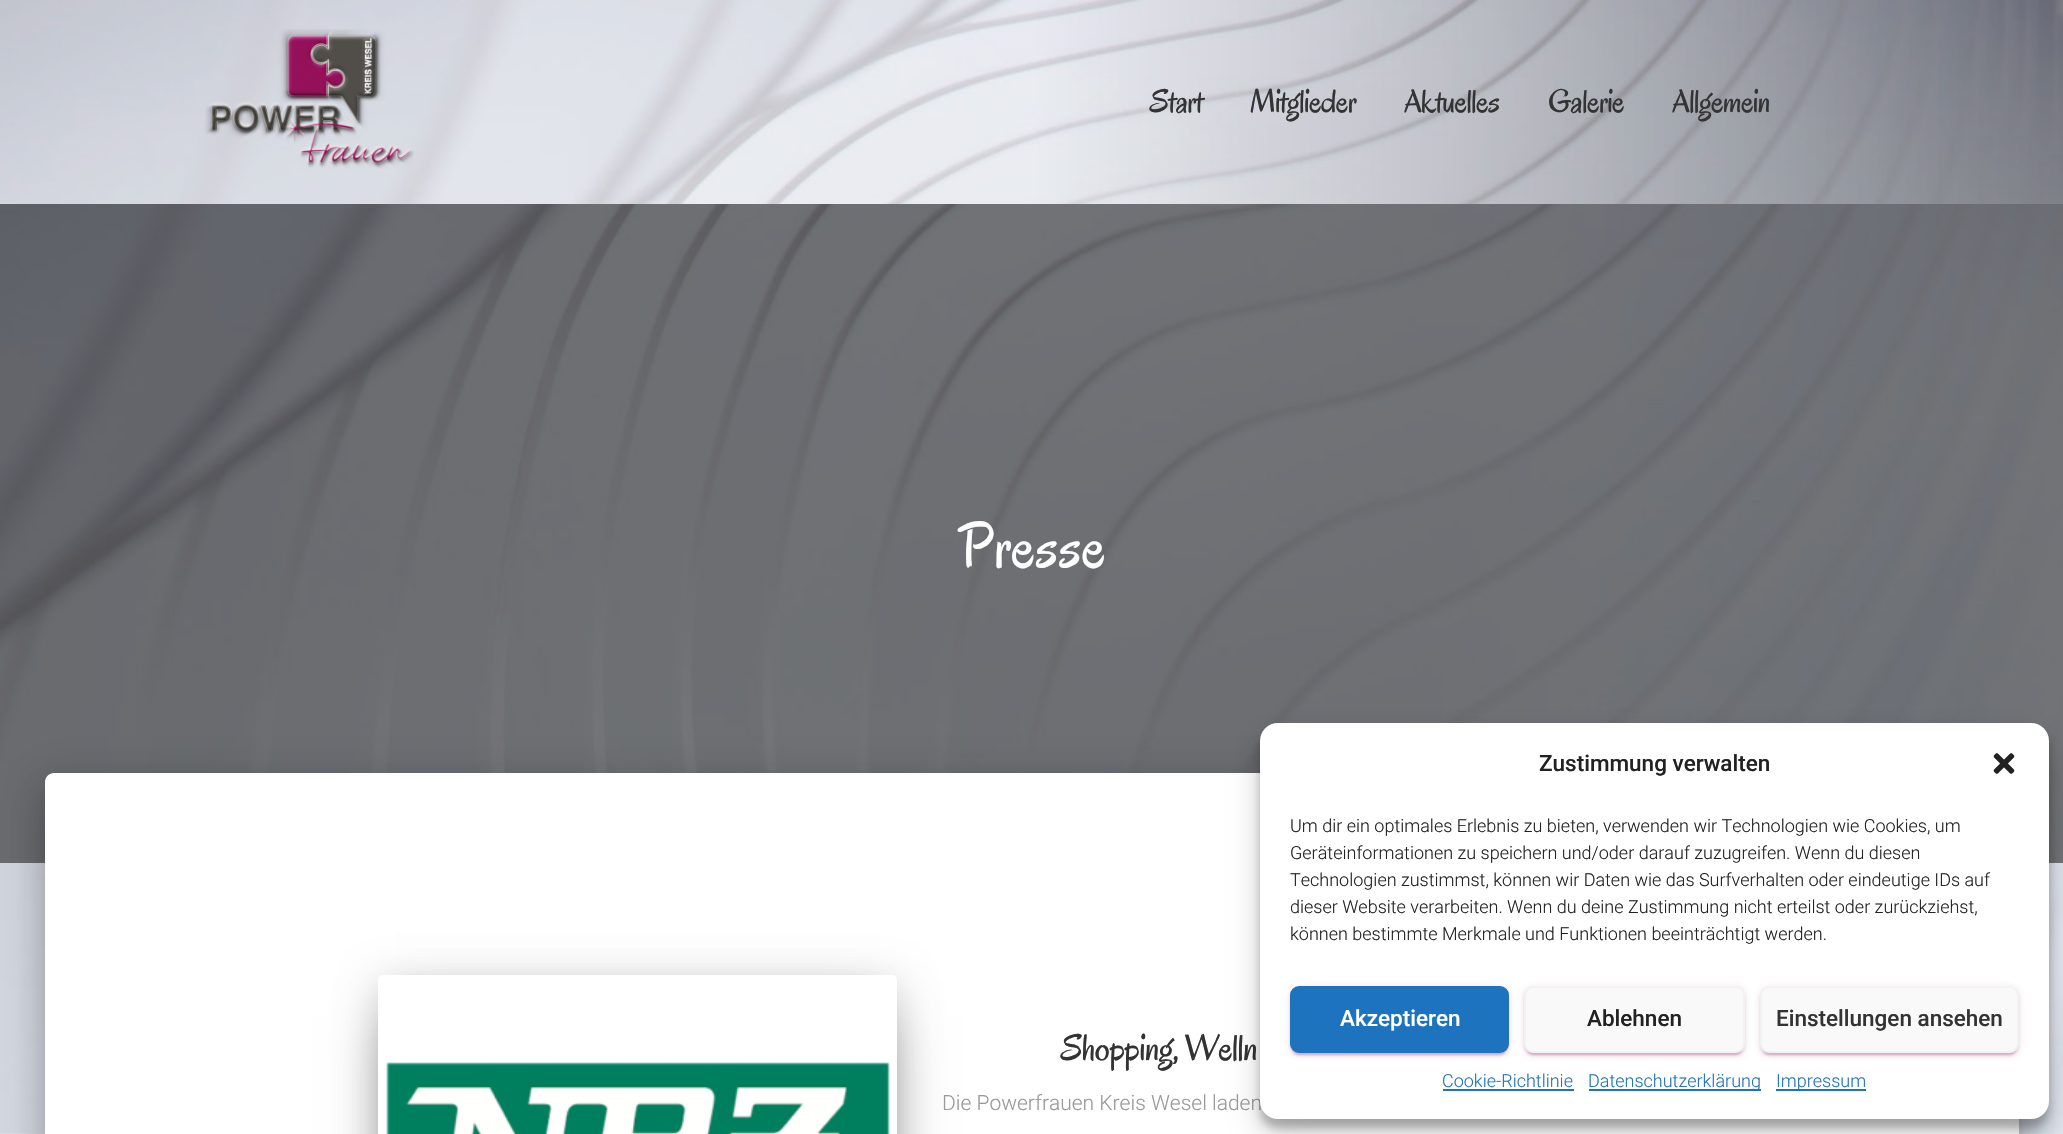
void draw(SkCanvas* canvas) {
    SkPaint paint;
    paint.setAntiAlias(true);
    auto spacedText = [&](const char* s, float x, float y, const SkFont& font, const SkPaint& ink, float letter, float word) {
        std::vector<SkGlyphID> glyphs(font.countText(s, strlen(s), SkTextEncoding::kUTF8));
        std::vector<float> xs(glyphs.size());
        font.textToGlyphs(s, strlen(s), SkTextEncoding::kUTF8, glyphs);
        font.getXPos(glyphs, xs, x);
        float extra = 0;
        for (size_t i = 0; i < glyphs.size(); i++) {
            xs[i] += extra;
            extra += letter + word * (glyphs[i] == font.unicharToGlyph(' '));
        }
        canvas->drawTextBlob(SkTextBlob::MakeFromPosHGlyphs(glyphs, xs, y, font), 0, 0, ink);
    };
    canvas->clear(0xFFFFFFFF);
    canvas->drawImageRect(SkImages::DeferredFromEncodedData(SkData::MakeFromFileName("img1.png")), SkRect::MakeXYWH(0, 0, 2063, 1134), SkSamplingOptions());
    canvas->drawImageRect(SkImages::DeferredFromEncodedData(SkData::MakeFromFileName("img2.png")), SkRect::MakeXYWH(205, 29, 209, 140), SkSamplingOptions());
    SkFont font1(fontMgr->matchFamilyStyle("Oregano", SkFontStyle::Normal()), 33);
    font1.setSubpixel(true);
    paint.setColor(0xFF333333);
    spacedText("Start", 1150, 112, font1, paint, -0.75f, 0);
    spacedText("Mitglieder", 1250, 112, font1, paint, -0.75f, 0);
    spacedText("Aktuelles", 1404, 112, font1, paint, -0.75f, 0);
    spacedText("Galerie", 1548, 112, font1, paint, -0.75f, 0);
    spacedText("Allgemein", 1672, 112, font1, paint, -0.75f, 0);
    canvas->drawImageRect(SkImages::DeferredFromEncodedData(SkData::MakeFromFileName("img3.png")), SkRect::MakeXYWH(0, 204, 2063, 659), SkSamplingOptions());
    paint.setColor(0x80000000);
    canvas->drawRect(SkRect::MakeXYWH(0, 204, 2063, 659), paint);
    SkFont font2(fontMgr->matchFamilyStyle("Oregano", SkFontStyle::Normal()), 63);
    font2.setSubpixel(true);
    paint.setColor(0xFFFFFFFF);
    canvas->drawString("Presse", 958, 567, font2, paint);
    paint.setColor(0x33000000);
    paint.setMaskFilter(SkMaskFilter::MakeBlur(kNormal_SkBlurStyle, 7.5f));
    canvas->drawRoundRect(SkRect::MakeXYWH(53, 792, 1959, 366), 1.5f, 1.5f, paint);
    paint.setMaskFilter(nullptr);
    paint.setColor(0x1F000000);
    paint.setMaskFilter(SkMaskFilter::MakeBlur(kNormal_SkBlurStyle, 22.5f));
    canvas->drawRoundRect(SkRect::MakeXYWH(38, 774, 1989, 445), 17, 17, paint);
    paint.setMaskFilter(nullptr);
    paint.setColor(0x24000000);
    paint.setMaskFilter(SkMaskFilter::MakeBlur(kNormal_SkBlurStyle, 18));
    canvas->drawRoundRect(SkRect::MakeXYWH(42, 794, 1980, 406), 12, 12, paint);
    paint.setMaskFilter(nullptr);
    paint.setColor(0xFFFFFFFF);
    canvas->drawPath(SkPathBuilder().moveTo(54, 773).lineTo(2010, 773).cubicTo(2015, 773, 2019, 777, 2019, 782).lineTo(2019, 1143).lineTo(45, 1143).lineTo(45, 782).cubicTo(45, 777, 49, 773, 54, 773).close().detach(), paint);
    canvas->save();
    canvas->clipPath(SkPathBuilder(SkPathFillType::kEvenOdd).moveTo(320, 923).lineTo(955, 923).lineTo(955, 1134).lineTo(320, 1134).close().moveTo(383, 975).lineTo(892, 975).cubicTo(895, 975, 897, 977, 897, 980).lineTo(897, 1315).cubicTo(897, 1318, 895, 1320, 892, 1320).lineTo(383, 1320).cubicTo(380, 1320, 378, 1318, 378, 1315).lineTo(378, 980).cubicTo(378, 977, 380, 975, 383, 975).close().detach(), true);
    paint.setColor(0x1F000000);
    paint.setMaskFilter(SkMaskFilter::MakeBlur(kNormal_SkBlurStyle, 19));
    canvas->drawRoundRect(SkRect::MakeXYWH(378, 981, 519, 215), 5, 5, paint);
    paint.setMaskFilter(nullptr);
    canvas->restore();
    canvas->save();
    canvas->clipPath(SkPathBuilder(SkPathFillType::kEvenOdd).moveTo(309, 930).lineTo(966, 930).lineTo(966, 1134).lineTo(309, 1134).close().moveTo(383, 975).lineTo(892, 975).cubicTo(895, 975, 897, 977, 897, 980).lineTo(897, 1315).cubicTo(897, 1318, 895, 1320, 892, 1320).lineTo(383, 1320).cubicTo(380, 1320, 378, 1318, 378, 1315).lineTo(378, 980).cubicTo(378, 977, 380, 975, 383, 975).close().detach(), true);
    paint.setColor(0x8F000000);
    paint.setMaskFilter(SkMaskFilter::MakeBlur(kNormal_SkBlurStyle, 28.5f));
    canvas->drawRect(SkRect::MakeXYWH(396, 1017, 483, 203), paint);
    paint.setMaskFilter(nullptr);
    canvas->restore();
    canvas->drawImageRect(SkImages::DeferredFromEncodedData(SkData::MakeFromFileName("img4.png")), SkRect::MakeXYWH(386, 1062, 504, 72), SkSamplingOptions());
    SkFont font3(fontMgr->matchFamilyStyle("Oregano", SkFontStyle::Normal()), 37.5f);
    font3.setSubpixel(true);
    paint.setColor(0xFF333333);
    spacedText("Shopping, Welln", 1061, 1060, font3, paint, -0.75f, 0);
    SkFont font4(fontMgr->matchFamilyStyle("Roboto", SkFontStyle(300, SkFontStyle::kNormal_Width, SkFontStyle::kUpright_Slant)), 21);
    font4.setSubpixel(true);
    paint.setColor(0xFF999999);
    canvas->drawString("Die Powerfrauen Kreis Wesel laden", 942, 1110, font4, paint);
    paint.setColor(0x3B000000);
    paint.setMaskFilter(SkMaskFilter::MakeBlur(kNormal_SkBlurStyle, 4.5f));
    canvas->drawRoundRect(SkRect::MakeXYWH(1260, 732, 789, 396), 18, 18, paint);
    paint.setMaskFilter(nullptr);
    paint.setColor(0x30000000);
    paint.setMaskFilter(SkMaskFilter::MakeBlur(kNormal_SkBlurStyle, 15));
    canvas->drawRoundRect(SkRect::MakeXYWH(1260, 738, 789, 396), 18, 18, paint);
    paint.setMaskFilter(nullptr);
    paint.setColor(0xFFFFFFFF);
    canvas->drawRoundRect(SkRect::MakeXYWH(1260, 723, 789, 396), 18, 18, paint);
    SkFont font5(fontMgr->matchFamilyStyle("Roboto", SkFontStyle(500, SkFontStyle::kNormal_Width, SkFontStyle::kUpright_Slant)), 22.5f);
    font5.setSubpixel(true);
    paint.setColor(0xFF222222);
    canvas->drawString("Zustimmung verwalten", 1539, 771, font5, paint);
    canvas->drawImageRect(SkImages::DeferredFromEncodedData(SkData::MakeFromFileName("img5.png")), SkRect::MakeXYWH(1993, 753, 22, 21), SkSamplingOptions());
    SkFont font6(fontMgr->matchFamilyStyle("Roboto", SkFontStyle(300, SkFontStyle::kNormal_Width, SkFontStyle::kUpright_Slant)), 18);
    font6.setSubpixel(true);
    canvas->drawString("Um dir ein optimales Erlebnis zu bieten, verwenden wir Technologien wie Cookies, um", 1290, 832, font6, paint);
    canvas->drawString("Geräteinformationen zu speichern und/oder darauf zuzugreifen. Wenn du diesen", 1290, 859, font6, paint);
    canvas->drawString("Technologien zustimmst, können wir Daten wie das Surfverhalten oder eindeutige IDs auf", 1290, 886, font6, paint);
    canvas->drawString("dieser Website verarbeiten. Wenn du deine Zustimmung nicht erteilst oder zurückziehst,", 1290, 913, font6, paint);
    canvas->drawString("können bestimmte Merkmale und Funktionen beeinträchtigt werden.", 1290, 940, font6, paint);
    paint.setColor(0x1F971865);
    paint.setMaskFilter(SkMaskFilter::MakeBlur(kNormal_SkBlurStyle, 4));
    canvas->drawRoundRect(SkRect::MakeXYWH(1290, 987, 219, 68), 9, 9, paint);
    paint.setMaskFilter(nullptr);
    paint.setColor(0x33971865);
    paint.setMaskFilter(SkMaskFilter::MakeBlur(kNormal_SkBlurStyle, 1));
    canvas->drawRoundRect(SkRect::MakeXYWH(1293, 993, 213, 62), 6, 6, paint);
    paint.setMaskFilter(nullptr);
    paint.setColor(0x24971865);
    paint.setMaskFilter(SkMaskFilter::MakeBlur(kNormal_SkBlurStyle, 1.5f));
    canvas->drawRoundRect(SkRect::MakeXYWH(1290, 989, 219, 67), 9, 9, paint);
    paint.setMaskFilter(nullptr);
    paint.setColor(0xFF1E73BE);
    canvas->drawRoundRect(SkRect::MakeXYWH(1291, 987, 217, 65), 8, 8, paint);
    paint.setStyle(SkPaint::kStroke_Style);
    paint.setStrokeWidth(2);
    canvas->drawRoundRect(SkRect::MakeXYWH(1291, 987, 217, 65), 8, 8, paint);
    paint.setStyle(SkPaint::kFill_Style);
    paint.setColor(0xFFFFFFFF);
    canvas->drawString("Akzeptieren", 1340, 1026, font5, paint);
    paint.setColor(0x1F971865);
    paint.setMaskFilter(SkMaskFilter::MakeBlur(kNormal_SkBlurStyle, 4));
    canvas->drawRoundRect(SkRect::MakeXYWH(1524, 987, 221, 68), 9, 9, paint);
    paint.setMaskFilter(nullptr);
    paint.setColor(0x33971865);
    paint.setMaskFilter(SkMaskFilter::MakeBlur(kNormal_SkBlurStyle, 1));
    canvas->drawRoundRect(SkRect::MakeXYWH(1527, 993, 215, 62), 6, 6, paint);
    paint.setMaskFilter(nullptr);
    paint.setColor(0x24971865);
    paint.setMaskFilter(SkMaskFilter::MakeBlur(kNormal_SkBlurStyle, 1.5f));
    canvas->drawRoundRect(SkRect::MakeXYWH(1524, 989, 221, 67), 9, 9, paint);
    paint.setMaskFilter(nullptr);
    paint.setColor(0xFFF9F9F9);
    canvas->drawRoundRect(SkRect::MakeXYWH(1525, 987, 219, 65), 8, 8, paint);
    paint.setStyle(SkPaint::kStroke_Style);
    paint.setColor(0xFFF2F2F2);
    canvas->drawRoundRect(SkRect::MakeXYWH(1525, 987, 219, 65), 8, 8, paint);
    paint.setStyle(SkPaint::kFill_Style);
    paint.setColor(0xFF222222);
    canvas->drawString("Ablehnen", 1587, 1026, font5, paint);
    paint.setColor(0x1F971865);
    paint.setMaskFilter(SkMaskFilter::MakeBlur(kNormal_SkBlurStyle, 4));
    canvas->drawRoundRect(SkRect::MakeXYWH(1760, 987, 259, 68), 9, 9, paint);
    paint.setMaskFilter(nullptr);
    paint.setColor(0x33971865);
    paint.setMaskFilter(SkMaskFilter::MakeBlur(kNormal_SkBlurStyle, 1));
    canvas->drawRoundRect(SkRect::MakeXYWH(1763, 993, 253, 62), 6, 6, paint);
    paint.setMaskFilter(nullptr);
    paint.setColor(0x24971865);
    paint.setMaskFilter(SkMaskFilter::MakeBlur(kNormal_SkBlurStyle, 1.5f));
    canvas->drawRoundRect(SkRect::MakeXYWH(1760, 989, 259, 67), 9, 9, paint);
    paint.setMaskFilter(nullptr);
    paint.setColor(0xFFF9F9F9);
    canvas->drawRoundRect(SkRect::MakeXYWH(1761, 987, 257, 65), 8, 8, paint);
    paint.setStyle(SkPaint::kStroke_Style);
    paint.setColor(0xFFF2F2F2);
    canvas->drawRoundRect(SkRect::MakeXYWH(1761, 987, 257, 65), 8, 8, paint);
    paint.setStyle(SkPaint::kFill_Style);
    paint.setColor(0xFF333333);
    canvas->drawString("Einstellungen ansehen", 1776, 1026, font5, paint);
    paint.setColor(0xFF1E73BE);
    canvas->drawString("Cookie-Richtlinie", 1442, 1087, font6, paint);
    canvas->drawRect(SkRect::MakeXYWH(1443, 1089, 131, 2), paint);
    canvas->drawRect(SkRect::MakeXYWH(1589, 1089, 172, 2), paint);
    canvas->drawString("Datenschutzerklärung", 1588, 1087, font6, paint);
    canvas->drawRect(SkRect::MakeXYWH(1776, 1089, 90, 2), paint);
    canvas->drawString("Impressum", 1776, 1087, font6, paint);
}
